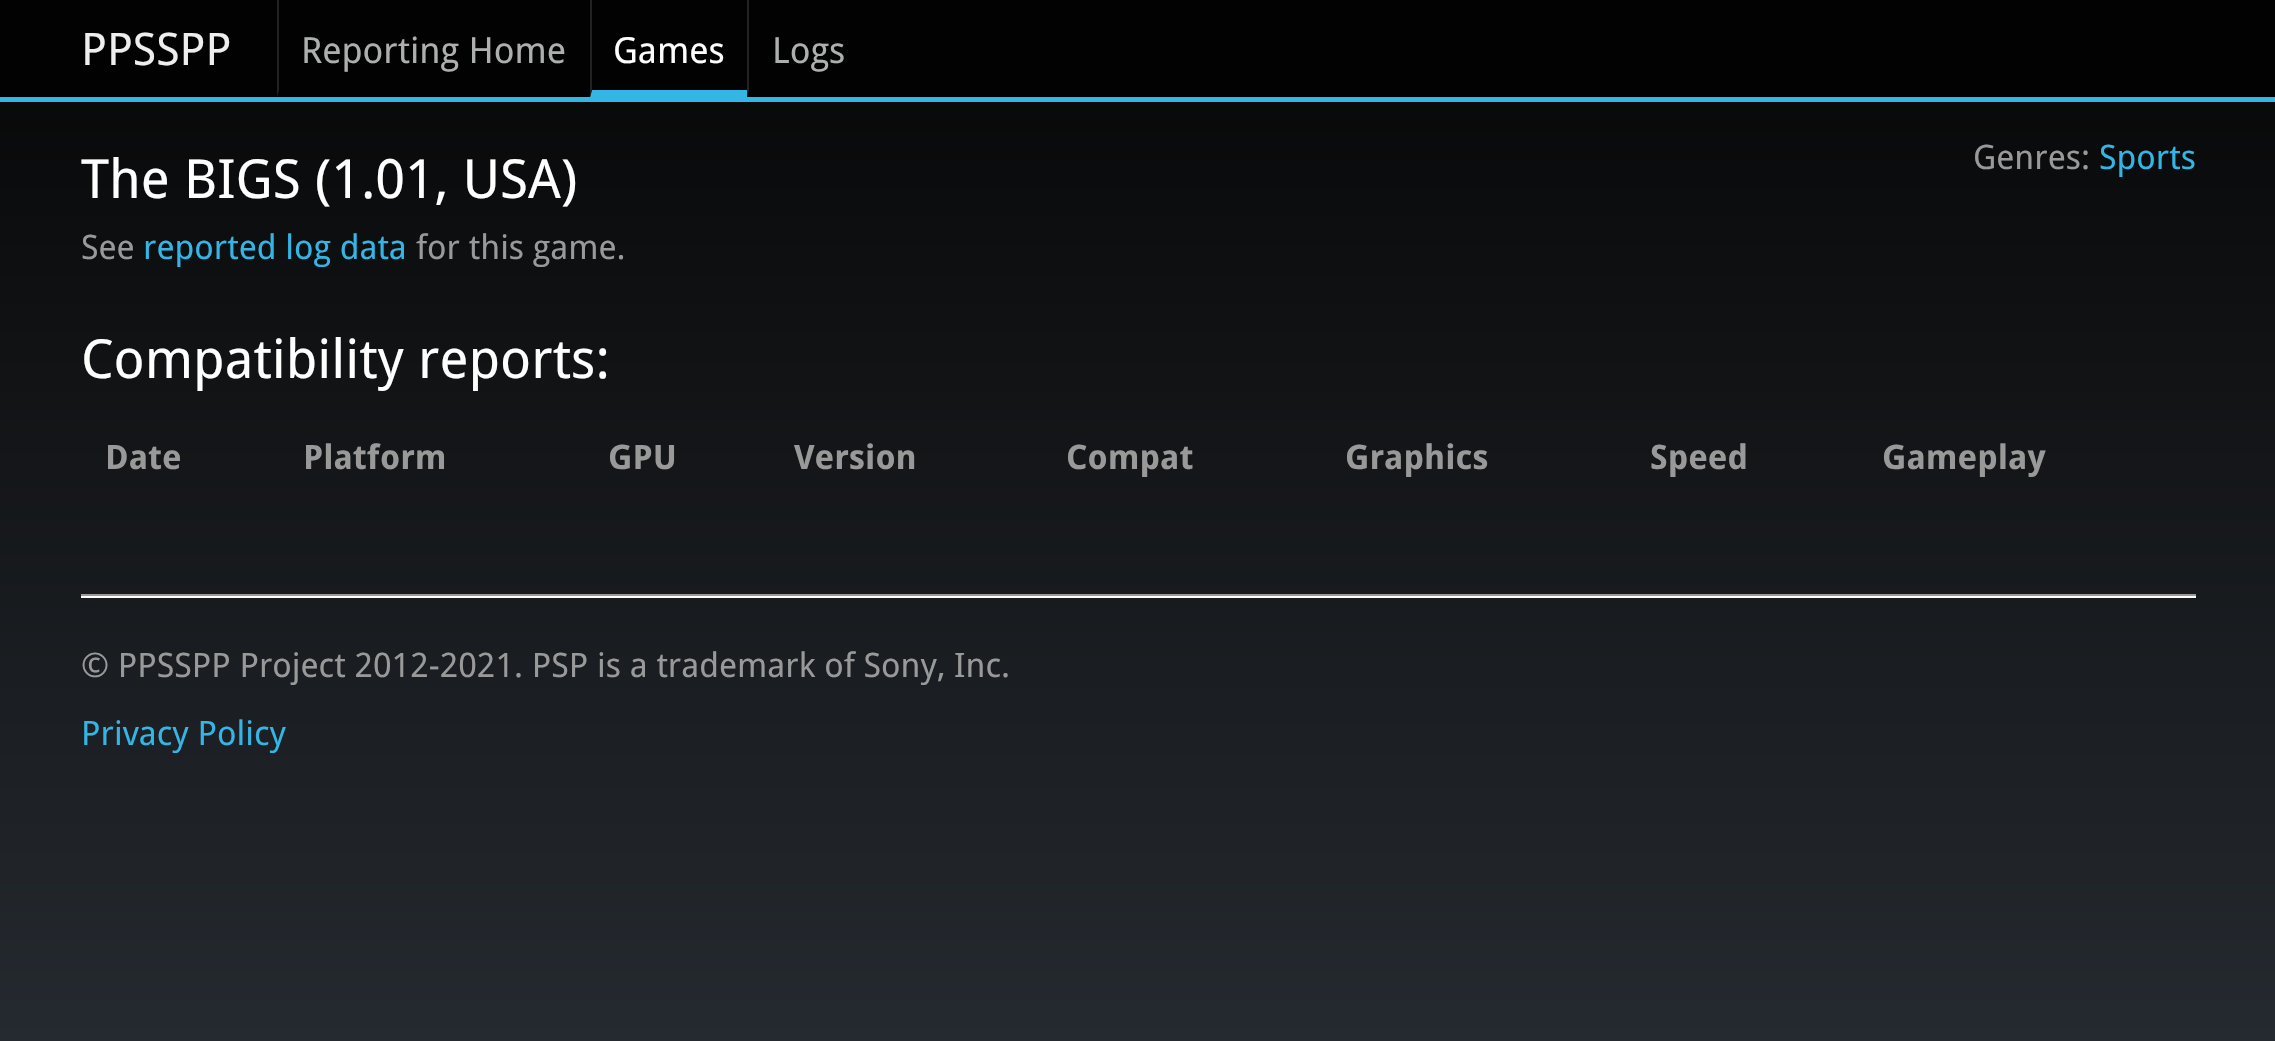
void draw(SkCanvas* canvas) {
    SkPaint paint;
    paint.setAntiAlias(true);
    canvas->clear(0xFFFFFFFF);
    {
        const SkColor colors[] = {0xFF060606, 0xFF252A30};
        const float stops[] = {0, 1};
        const SkPoint ends[] = {{1139, 0}, {1139, 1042}};
        paint.setShader(SkGradientShader::MakeLinear(ends, colors, stops, 2, SkTileMode::kClamp));
        paint.setAlpha(255);
    }
    canvas->drawRect(SkRect::MakeXYWH(0, 102, 2275, 939), paint);
    paint.setShader(nullptr);
    paint.setColor(0xFF020202);
    canvas->drawRect(SkRect::MakeXYWH(0, 0, 2275, 97), paint);
    paint.setColor(0xFF33B5E5);
    canvas->drawRect(SkRect::MakeXYWH(0, 97, 2275, 5), paint);
    SkFont font1(fontMgr->matchFamilyStyle("Droid Sans", SkFontStyle::Normal()), 45);
    font1.setSubpixel(true);
    paint.setColor(0xFFEEEEEE);
    canvas->drawString("PPSSPP", 81, 65, font1, paint);
    paint.setColor(0xFF222222);
    canvas->drawPath(SkPathBuilder().moveTo(277, 97).lineTo(277, 0).lineTo(279, 0).lineTo(279, 90).close().detach(), paint);
    SkFont font2(fontMgr->matchFamilyStyle("Droid Sans", SkFontStyle::Normal()), 36);
    font2.setSubpixel(true);
    paint.setColor(0xFFADAFAE);
    canvas->drawString("Reporting Home", 301, 63, font2, paint);
    paint.setColor(0xFF33B5E5);
    canvas->drawPath(SkPathBuilder().moveTo(747, 97).lineTo(590, 97).lineTo(592, 90).lineTo(747, 90).close().detach(), paint);
    paint.setColor(0xFF222222);
    canvas->drawPath(SkPathBuilder().moveTo(590, 97).lineTo(590, 0).lineTo(592, 0).lineTo(592, 90).close().detach(), paint);
    paint.setColor(0xFFFFFFFF);
    canvas->drawString("Games", 613, 63, font2, paint);
    paint.setColor(0xFF222222);
    canvas->drawPath(SkPathBuilder().moveTo(747, 97).lineTo(747, 0).lineTo(749, 0).lineTo(749, 90).close().detach(), paint);
    paint.setColor(0xFFADAFAE);
    canvas->drawString("Logs", 772, 63, font2, paint);
    SkFont font3(fontMgr->matchFamilyStyle("Droid Sans", SkFontStyle::Normal()), 54);
    font3.setSubpixel(true);
    paint.setColor(0xFFFFFFFF);
    canvas->drawString("The BIGS (1.01, USA)", 81, 198, font3, paint);
    SkFont font4(fontMgr->matchFamilyStyle("Droid Sans", SkFontStyle::Normal()), 33.75f);
    font4.setSubpixel(true);
    paint.setColor(0xFF999999);
    canvas->drawString("See", 81, 259, font4, paint);
    paint.setColor(0xFF33B5E5);
    canvas->drawString("reported log data", 143, 259, font4, paint);
    paint.setColor(0xFF999999);
    canvas->drawString("for this game.", 416, 259, font4, paint);
    canvas->drawString("Genres:", 1973, 169, font4, paint);
    paint.setColor(0xFF33B5E5);
    canvas->drawString("Sports", 2099, 169, font4, paint);
    paint.setColor(0xFFFFFFFF);
    canvas->drawString("Compatibility reports:", 81, 378, font3, paint);
    SkFont font5(fontMgr->matchFamilyStyle("Droid Sans", SkFontStyle::Bold()), 33.75f);
    font5.setSubpixel(true);
    paint.setColor(0xFF999999);
    canvas->drawString("Date", 105, 469, font5, paint);
    canvas->drawString("Platform", 303, 469, font5, paint);
    canvas->drawString("GPU", 608, 469, font5, paint);
    canvas->drawString("Version", 794, 469, font5, paint);
    canvas->drawString("Compat", 1066, 469, font5, paint);
    canvas->drawString("Graphics", 1345, 469, font5, paint);
    canvas->drawString("Speed", 1650, 469, font5, paint);
    canvas->drawString("Gameplay", 1882, 469, font5, paint);
    canvas->drawRect(SkRect::MakeXYWH(81, 594, 2115, 2), paint);
    paint.setColor(0xFFFFFFFF);
    canvas->drawRect(SkRect::MakeXYWH(81, 596, 2115, 2), paint);
    paint.setColor(0xFF999999);
    canvas->drawString("© PPSSPP Project 2012-2021. PSP is a trademark of Sony, Inc.", 81, 677, font4, paint);
    paint.setColor(0xFF33B5E5);
    canvas->drawString("Privacy Policy", 81, 745, font4, paint);
}
